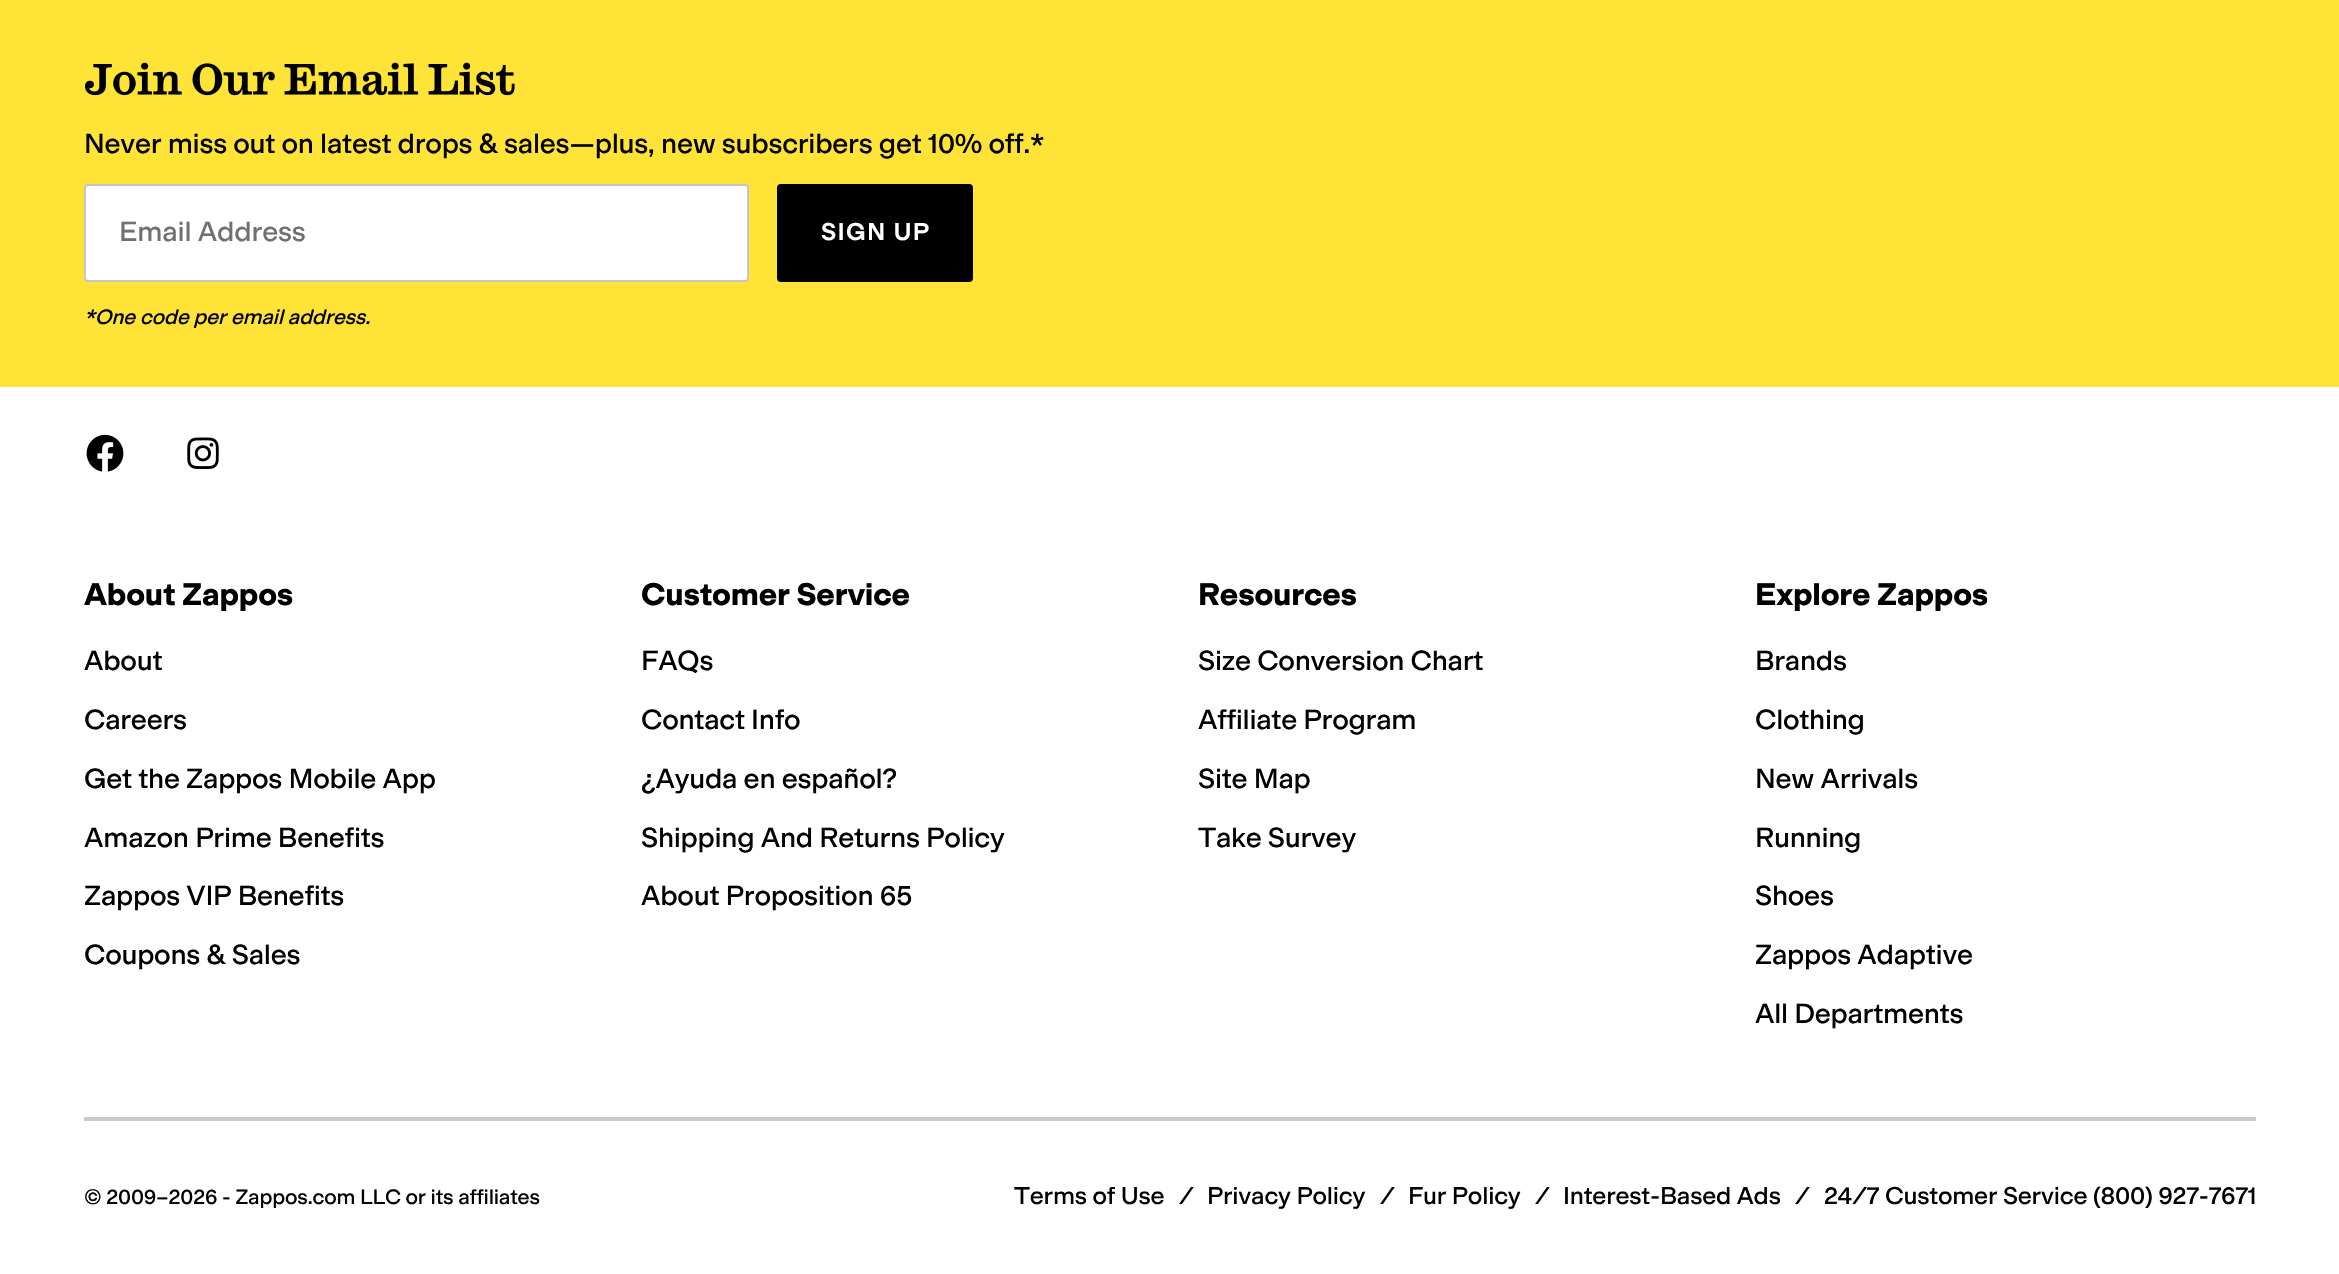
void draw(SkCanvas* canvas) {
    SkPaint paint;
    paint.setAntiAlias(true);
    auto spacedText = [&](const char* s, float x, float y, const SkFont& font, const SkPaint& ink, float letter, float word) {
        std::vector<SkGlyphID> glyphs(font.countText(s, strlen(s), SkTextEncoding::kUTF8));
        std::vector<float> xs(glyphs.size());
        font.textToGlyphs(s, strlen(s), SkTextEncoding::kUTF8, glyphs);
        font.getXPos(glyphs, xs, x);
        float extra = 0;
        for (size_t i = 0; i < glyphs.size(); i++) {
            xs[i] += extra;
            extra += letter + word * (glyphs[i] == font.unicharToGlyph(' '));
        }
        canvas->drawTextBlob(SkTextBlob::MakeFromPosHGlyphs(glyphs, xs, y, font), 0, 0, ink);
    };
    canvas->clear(0xFFFFFFFF);
    paint.setColor(0xFFFFE337);
    canvas->drawRect(SkRect::MakeXYWH(0, 0, 2339, 387), paint);
    canvas->drawImageRect(SkImages::DeferredFromEncodedData(SkData::MakeFromFileName("img1.png")), SkRect::MakeXYWH(85, 62, 430, 34), SkSamplingOptions());
    SkFont font1(fontMgr->matchFamilyStyle("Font", SkFontStyle::Normal()), 28);
    font1.setSubpixel(true);
    paint.setColor(0xFF000000);
    spacedText("Never miss out on latest drops & sales—plus, new subscribers get 10% off.*", 84, 153, font1, paint, -0.28f, 0);
    paint.setColor(0xFFFFFFFF);
    canvas->drawRoundRect(SkRect::MakeXYWH(85, 185, 663, 96), 3, 3, paint);
    paint.setStyle(SkPaint::kStroke_Style);
    paint.setStrokeWidth(2);
    paint.setColor(0xFFC5C5C5);
    canvas->drawRoundRect(SkRect::MakeXYWH(85, 185, 663, 96), 3, 3, paint);
    paint.setStyle(SkPaint::kFill_Style);
    paint.setColor(0xFF707070);
    spacedText("Email Address", 119, 241, font1, paint, -0.2f, 0);
    paint.setColor(0xFF000000);
    canvas->drawRoundRect(SkRect::MakeXYWH(778, 185, 194, 96), 3, 3, paint);
    paint.setStyle(SkPaint::kStroke_Style);
    canvas->drawRoundRect(SkRect::MakeXYWH(778, 185, 194, 96), 3, 3, paint);
    SkFont font2(fontMgr->matchFamilyStyle("Font", SkFontStyle(500, SkFontStyle::kNormal_Width, SkFontStyle::kUpright_Slant)), 24.5f);
    font2.setSubpixel(true);
    paint.setStyle(SkPaint::kFill_Style);
    paint.setColor(0xFFFFFFFF);
    spacedText("SIGN UP", 821, 240, font2, paint, 1.25f, 0);
    SkFont font3(fontMgr->matchFamilyStyle("Font", SkFontStyle::Italic()), 21);
    font3.setSubpixel(true);
    paint.setColor(0xFF000000);
    spacedText("*One code per email address.", 84, 324, font3, paint, -0.2f, 0);
    canvas->drawImageRect(SkImages::DeferredFromEncodedData(SkData::MakeFromFileName("img2.png")), SkRect::MakeXYWH(86, 434, 38, 38), SkSamplingOptions());
    canvas->drawImageRect(SkImages::DeferredFromEncodedData(SkData::MakeFromFileName("img3.png")), SkRect::MakeXYWH(187, 437, 32, 32), SkSamplingOptions());
    SkFont font4(fontMgr->matchFamilyStyle("Font", SkFontStyle::Bold()), 31.5f);
    font4.setSubpixel(true);
    spacedText("About Zappos", 84, 605, font4, paint, -0.2f, 0);
    spacedText("About", 84, 670, font1, paint, -0.28f, 0);
    spacedText("Careers", 84, 729, font1, paint, -0.28f, 0);
    spacedText("Get the Zappos Mobile App", 84, 788, font1, paint, -0.28f, 0);
    spacedText("Amazon Prime Benefits", 84, 847, font1, paint, -0.28f, 0);
    spacedText("Zappos VIP Benefits", 84, 905, font1, paint, -0.28f, 0);
    spacedText("Coupons & Sales", 84, 964, font1, paint, -0.28f, 0);
    spacedText("Customer Service", 641, 605, font4, paint, -0.2f, 0);
    spacedText("FAQs", 641, 670, font1, paint, -0.28f, 0);
    spacedText("Contact Info", 641, 729, font1, paint, -0.28f, 0);
    spacedText("¿Ayuda en español?", 641, 788, font1, paint, -0.28f, 0);
    spacedText("Shipping And Returns Policy", 641, 847, font1, paint, -0.28f, 0);
    spacedText("About Proposition 65", 641, 905, font1, paint, -0.28f, 0);
    spacedText("Resources", 1198, 605, font4, paint, -0.2f, 0);
    spacedText("Size Conversion Chart", 1198, 670, font1, paint, -0.28f, 0);
    spacedText("Affiliate Program", 1198, 729, font1, paint, -0.28f, 0);
    spacedText("Site Map", 1198, 788, font1, paint, -0.28f, 0);
    spacedText("Take Survey", 1198, 847, font1, paint, -0.28f, 0);
    spacedText("Explore Zappos", 1755, 605, font4, paint, -0.2f, 0);
    spacedText("Brands", 1755, 670, font1, paint, -0.28f, 0);
    spacedText("Clothing", 1755, 729, font1, paint, -0.28f, 0);
    spacedText("New Arrivals", 1755, 788, font1, paint, -0.28f, 0);
    spacedText("Running", 1755, 847, font1, paint, -0.28f, 0);
    spacedText("Shoes", 1755, 905, font1, paint, -0.28f, 0);
    spacedText("Zappos Adaptive", 1755, 964, font1, paint, -0.28f, 0);
    spacedText("All Departments", 1755, 1023, font1, paint, -0.28f, 0);
    paint.setColor(0xFFC9C9C9);
    canvas->drawRect(SkRect::MakeXYWH(84, 1117, 2172, 4), paint);
    SkFont font5(fontMgr->matchFamilyStyle("Font", SkFontStyle::Normal()), 21);
    font5.setSubpixel(true);
    paint.setColor(0xFF000000);
    spacedText("© 2009–2026 - Zappos.com LLC or its affiliates", 84, 1204, font5, paint, -0.2f, 0);
    SkFont font6(fontMgr->matchFamilyStyle("Font", SkFontStyle::Normal()), 24.5f);
    font6.setSubpixel(true);
    spacedText("Terms of Use", 1014, 1204, font6, paint, -0.2f, 0);
    spacedText("/", 1179, 1204, font6, paint, -0.2f, 0);
    spacedText("Privacy Policy", 1207, 1204, font6, paint, -0.2f, 0);
    spacedText("/", 1380, 1204, font6, paint, -0.2f, 0);
    spacedText("Fur Policy", 1408, 1204, font6, paint, -0.2f, 0);
    spacedText("/", 1535, 1204, font6, paint, -0.2f, 0);
    spacedText("Interest-Based Ads", 1563, 1204, font6, paint, -0.2f, 0);
    spacedText("/", 1795, 1204, font6, paint, -0.2f, 0);
    spacedText("24/7 Customer Service (800) 927-7671", 1824, 1204, font6, paint, -0.2f, 0);
}
